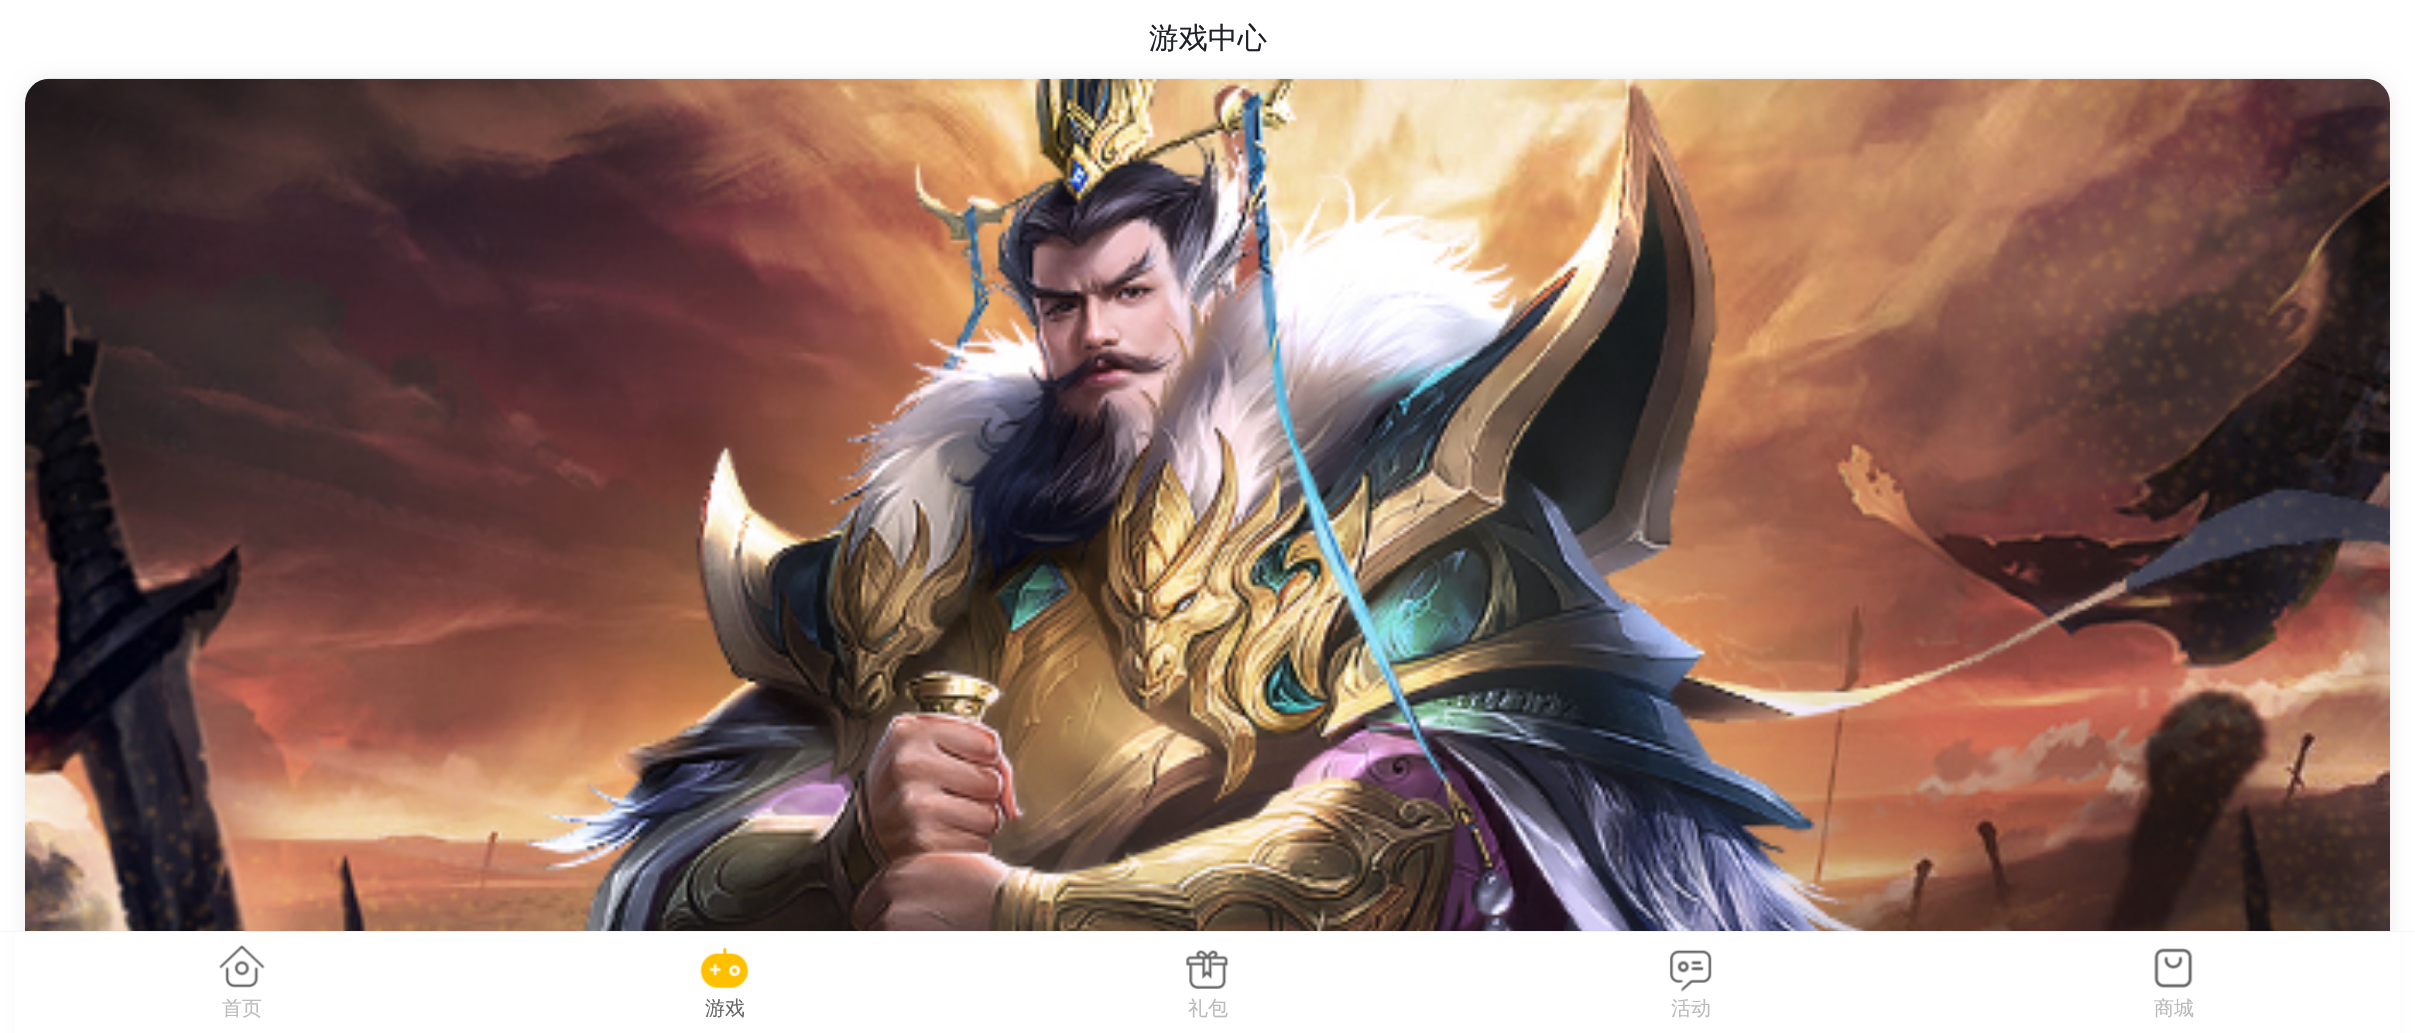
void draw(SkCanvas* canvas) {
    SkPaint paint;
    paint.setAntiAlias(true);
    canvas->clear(0xFFFFFFFF);
    SkFont font1(fontMgr->matchFamilyStyle("WenQuanYi Zen Hei", SkFontStyle(500, SkFontStyle::kNormal_Width, SkFontStyle::kUpright_Slant)), 29.5f);
    font1.setSubpixel(true);
    paint.setColor(0xFF1D2025);
    canvas->drawString("游戏中心", 1149, 48, font1, paint);
    paint.setColor(0x14000000);
    paint.setMaskFilter(SkMaskFilter::MakeBlur(kNormal_SkBlurStyle, 8.5f));
    canvas->drawRoundRect(SkRect::MakeXYWH(25, 79, 2365, 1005), 25, 25, paint);
    paint.setMaskFilter(nullptr);
    canvas->drawImageRect(SkImages::DeferredFromEncodedData(SkData::MakeFromFileName("img1.png")), SkRect::MakeXYWH(25, 78, 2365, 853), SkSamplingOptions());
    paint.setColor(0xFFFFFFFF);
    canvas->drawRect(SkRect::MakeXYWH(15, 932, 2385, 101), paint);
    paint.setColor(0xFFF6F6F6);
    canvas->drawRect(SkRect::MakeXYWH(0, 931, 2415, 1), paint);
    canvas->drawImageRect(SkImages::DeferredFromEncodedData(SkData::MakeFromFileName("img2.png")), SkRect::MakeXYWH(219, 945, 46, 43), SkSamplingOptions());
    SkFont font2(fontMgr->matchFamilyStyle("WenQuanYi Zen Hei", SkFontStyle(500, SkFontStyle::kNormal_Width, SkFontStyle::kUpright_Slant)), 20);
    font2.setSubpixel(true);
    paint.setColor(0xFFBBBBBB);
    canvas->drawString("首页", 222, 1015, font2, paint);
    canvas->drawImageRect(SkImages::DeferredFromEncodedData(SkData::MakeFromFileName("img3.png")), SkRect::MakeXYWH(700, 947, 49, 41), SkSamplingOptions());
    paint.setColor(0xFF666666);
    canvas->drawString("游戏", 705, 1015, font2, paint);
    canvas->drawImageRect(SkImages::DeferredFromEncodedData(SkData::MakeFromFileName("img4.png")), SkRect::MakeXYWH(1186, 949, 43, 40), SkSamplingOptions());
    paint.setColor(0xFFBBBBBB);
    canvas->drawString("礼包", 1188, 1015, font2, paint);
    canvas->drawImageRect(SkImages::DeferredFromEncodedData(SkData::MakeFromFileName("img5.png")), SkRect::MakeXYWH(1669, 949, 43, 43), SkSamplingOptions());
    canvas->drawString("活动", 1671, 1015, font2, paint);
    canvas->drawImageRect(SkImages::DeferredFromEncodedData(SkData::MakeFromFileName("img6.png")), SkRect::MakeXYWH(2154, 948, 39, 40), SkSamplingOptions());
    canvas->drawString("商城", 2154, 1015, font2, paint);
}
